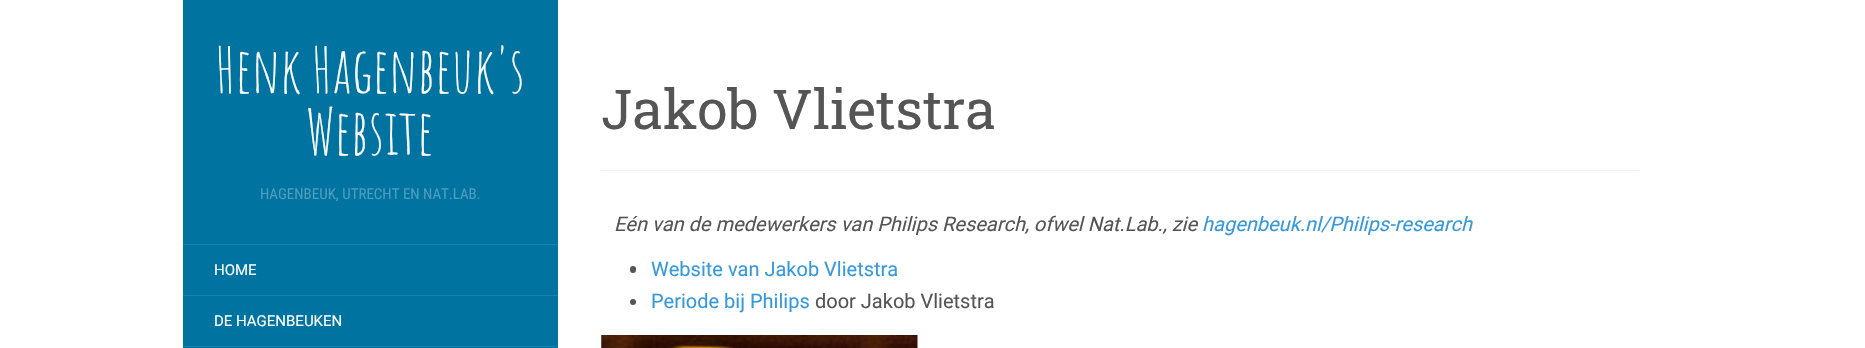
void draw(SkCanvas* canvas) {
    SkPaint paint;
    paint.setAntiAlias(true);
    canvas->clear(0xFFFFFFFF);
    paint.setColor(0xFF0073A1);
    canvas->drawRect(SkRect::MakeXYWH(183, 0, 375, 348), paint);
    paint.setColor(0xFF1A81AA);
    canvas->drawRect(SkRect::MakeXYWH(183, 244, 375, 1), paint);
    SkFont font1(fontMgr->matchFamilyStyle("Amatic SC", SkFontStyle::Normal()), 62.5f);
    font1.setSubpixel(true);
    paint.setColor(0xFFFFFFFF);
    canvas->drawString("Henk Hagenbeuk's", 215, 93, font1, paint);
    canvas->drawString("Website", 306, 155, font1, paint);
    SkFont font2(fontMgr->matchFamilyStyle("Roboto Condensed", SkFontStyle::Normal()), 15);
    font2.setSubpixel(true);
    paint.setColor(0xFF4D9DBD);
    canvas->drawString("HAGENBEUK, UTRECHT EN NAT.LAB.", 260, 199, font2, paint);
    paint.setColor(0xFF1A81AA);
    canvas->drawRect(SkRect::MakeXYWH(183, 295, 375, 1), paint);
    SkFont font3(fontMgr->matchFamilyStyle("Roboto", SkFontStyle::Normal()), 15);
    font3.setSubpixel(true);
    paint.setColor(0xFFFFFFFF);
    canvas->drawString("HOME", 214, 275, font3, paint);
    paint.setColor(0xFF1A81AA);
    canvas->drawRect(SkRect::MakeXYWH(183, 346, 375, 1), paint);
    paint.setColor(0xFFFFFFFF);
    canvas->drawString("DE HAGENBEUKEN", 214, 326, font3, paint);
    paint.setColor(0xFFF3F3F3);
    canvas->drawRect(SkRect::MakeXYWH(601, 170, 1038, 1), paint);
    SkFont font4(fontMgr->matchFamilyStyle("Roboto Slab", SkFontStyle::Normal()), 55);
    font4.setSubpixel(true);
    paint.setColor(0xFF555555);
    canvas->drawString("Jakob Vlietstra", 601, 129, font4, paint);
    SkFont font5(fontMgr->matchFamilyStyle("Roboto", SkFontStyle::Italic()), 20);
    font5.setSubpixel(true);
    canvas->drawString("Eén van de medewerkers van Philips Research, ofwel Nat.Lab., zie", 614, 231, font5, paint);
    paint.setColor(0xFF3699DC);
    canvas->drawString("hagenbeuk.nl/Philips-research", 1202, 231, font5, paint);
    paint.setColor(0xFF555555);
    canvas->drawRoundRect(SkRect::MakeXYWH(630, 266, 6, 7), 3, 3, paint);
    SkFont font6(fontMgr->matchFamilyStyle("Roboto", SkFontStyle::Normal()), 20);
    font6.setSubpixel(true);
    paint.setColor(0xFF3699DC);
    canvas->drawString("Website van Jakob Vlietstra", 651, 276, font6, paint);
    paint.setColor(0xFF555555);
    canvas->drawCircle(633, 302, 3, paint);
    paint.setColor(0xFF3699DC);
    canvas->drawString("Periode bij Philips", 651, 308, font6, paint);
    paint.setColor(0xFF555555);
    canvas->drawString("door Jakob Vlietstra", 815, 308, font6, paint);
    canvas->drawImageRect(SkImages::DeferredFromEncodedData(SkData::MakeFromFileName("img1.png")), SkRect::MakeXYWH(601, 335, 317, 13), SkSamplingOptions());
}
